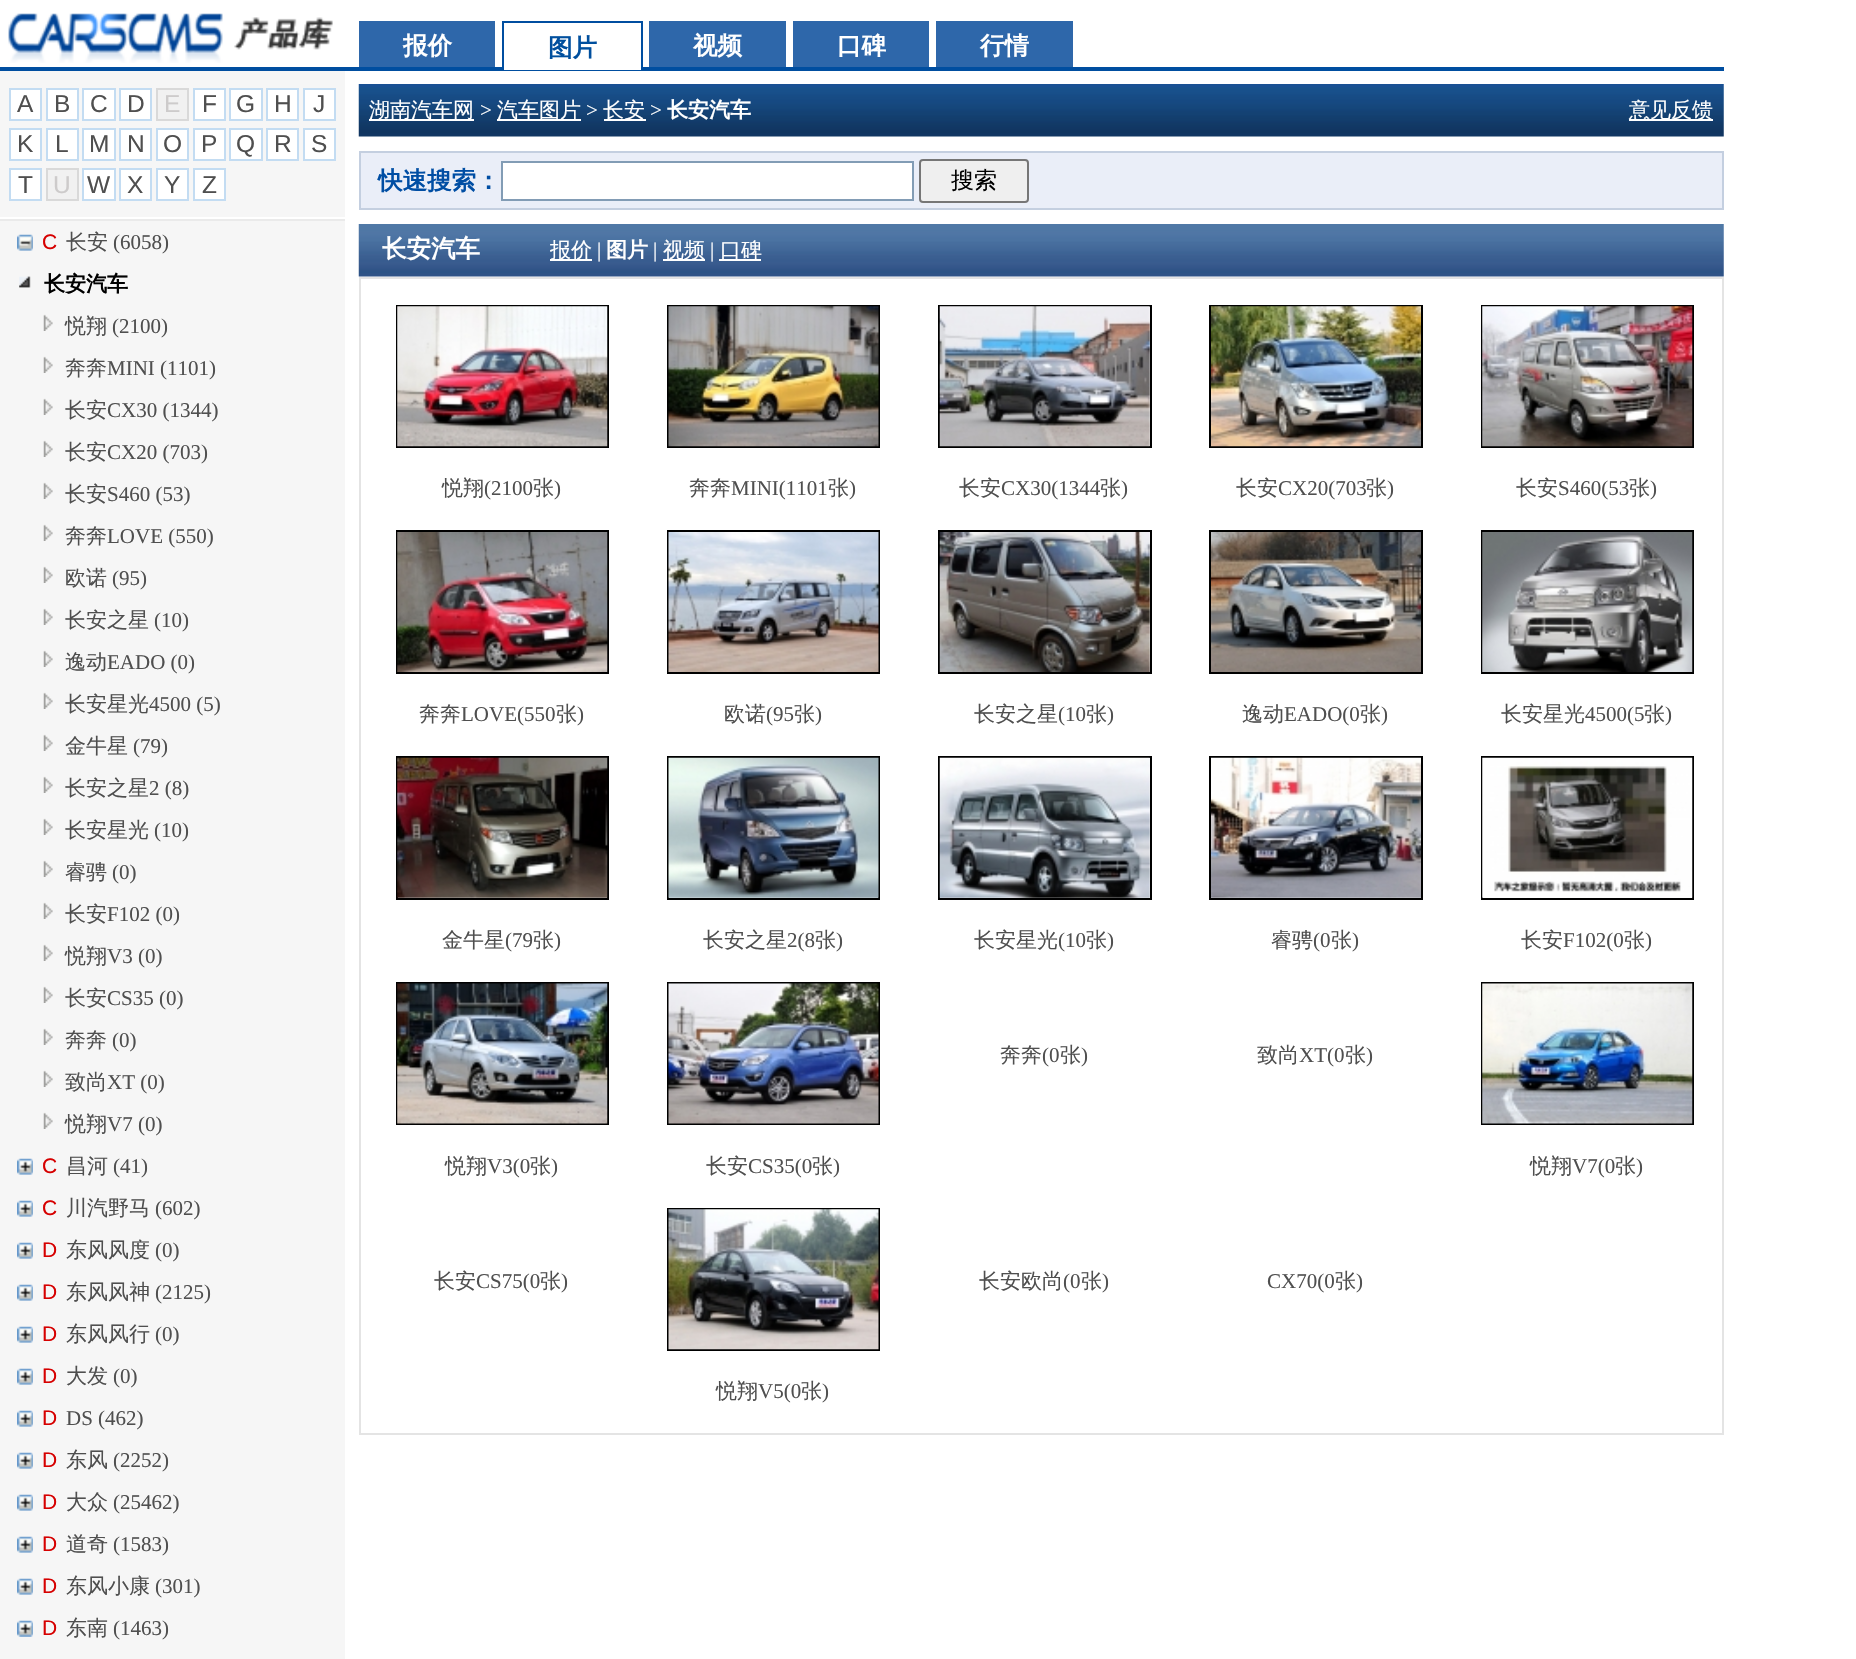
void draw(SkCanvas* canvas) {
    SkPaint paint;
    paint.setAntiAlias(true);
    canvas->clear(0xFFFFFFFF);
    paint.setColor(0xFF004EA0);
    canvas->drawRect(SkRect::MakeXYWH(0, 67, 1724, 4), paint);
    canvas->drawImageRect(SkImages::DeferredFromEncodedData(SkData::MakeFromFileName("img1.png")), SkRect::MakeXYWH(8, 13, 325, 50), SkSamplingOptions());
    paint.setColor(0xFF2E67AA);
    canvas->drawRect(SkRect::MakeXYWH(359, 21, 136, 46), paint);
    SkFont font1(fontMgr->matchFamilyStyle("WenQuanYi Zen Hei", SkFontStyle::Bold()), 24.5f);
    font1.setSubpixel(true);
    paint.setColor(0xFFFFFFFF);
    canvas->drawString("报价", 403, 54, font1, paint);
    canvas->drawRect(SkRect::MakeXYWH(504, 67, 137, 3), paint);
    paint.setColor(0xFF004EA0);
    canvas->drawRect(SkRect::MakeXYWH(502, 21, 140, 2), paint);
    canvas->drawRect(SkRect::MakeXYWH(641, 21, 2, 49), paint);
    canvas->drawRect(SkRect::MakeXYWH(502, 21, 2, 49), paint);
    paint.setColor(0xFF004F9E);
    canvas->drawString("图片", 548, 56, font1, paint);
    paint.setColor(0xFF2E67AA);
    canvas->drawRect(SkRect::MakeXYWH(649, 21, 137, 46), paint);
    paint.setColor(0xFFFFFFFF);
    canvas->drawString("视频", 693, 54, font1, paint);
    paint.setColor(0xFF2E67AA);
    canvas->drawRect(SkRect::MakeXYWH(793, 21, 136, 46), paint);
    paint.setColor(0xFFFFFFFF);
    canvas->drawString("口碑", 837, 54, font1, paint);
    paint.setColor(0xFF2E67AA);
    canvas->drawRect(SkRect::MakeXYWH(936, 21, 137, 46), paint);
    paint.setColor(0xFFFFFFFF);
    canvas->drawString("行情", 980, 54, font1, paint);
    paint.setColor(0xFFF6F6F6);
    canvas->drawRect(SkRect::MakeXYWH(0, 71, 345, 146), paint);
    paint.setColor(0xFFFFFFFF);
    canvas->drawRect(SkRect::MakeXYWH(10, 89, 31, 31), paint);
    paint.setStyle(SkPaint::kStroke_Style);
    paint.setStrokeWidth(2);
    paint.setColor(0xFFC3DCF2);
    canvas->drawRect(SkRect::MakeXYWH(10, 89, 31, 31), paint);
    SkFont font2(fontMgr->matchFamilyStyle("Liberation Sans", SkFontStyle::Normal()), 24.5f);
    font2.setSubpixel(true);
    paint.setStyle(SkPaint::kFill_Style);
    paint.setColor(0xFF4F4F4F);
    canvas->drawString("A", 17, 112, font2, paint);
    paint.setColor(0xFFFFFFFF);
    canvas->drawRect(SkRect::MakeXYWH(47, 89, 31, 31), paint);
    paint.setStyle(SkPaint::kStroke_Style);
    paint.setColor(0xFFC3DCF2);
    canvas->drawRect(SkRect::MakeXYWH(47, 89, 31, 31), paint);
    paint.setStyle(SkPaint::kFill_Style);
    paint.setColor(0xFF4F4F4F);
    canvas->drawString("B", 54, 112, font2, paint);
    paint.setColor(0xFFFFFFFF);
    canvas->drawRect(SkRect::MakeXYWH(83, 89, 32, 31), paint);
    paint.setStyle(SkPaint::kStroke_Style);
    paint.setColor(0xFFC3DCF2);
    canvas->drawRect(SkRect::MakeXYWH(83, 89, 32, 31), paint);
    paint.setStyle(SkPaint::kFill_Style);
    paint.setColor(0xFF4F4F4F);
    canvas->drawString("C", 90, 112, font2, paint);
    paint.setColor(0xFFFFFFFF);
    canvas->drawRect(SkRect::MakeXYWH(120, 89, 31, 31), paint);
    paint.setStyle(SkPaint::kStroke_Style);
    paint.setColor(0xFFC3DCF2);
    canvas->drawRect(SkRect::MakeXYWH(120, 89, 31, 31), paint);
    paint.setStyle(SkPaint::kFill_Style);
    paint.setColor(0xFF4F4F4F);
    canvas->drawString("D", 127, 112, font2, paint);
    paint.setColor(0xFFF1F1F1);
    canvas->drawRect(SkRect::MakeXYWH(157, 89, 31, 31), paint);
    paint.setStyle(SkPaint::kStroke_Style);
    paint.setColor(0xFFD9D9D9);
    canvas->drawRect(SkRect::MakeXYWH(157, 89, 31, 31), paint);
    paint.setStyle(SkPaint::kFill_Style);
    paint.setColor(0xFFCDCBCB);
    canvas->drawString("E", 164, 112, font2, paint);
    paint.setColor(0xFFFFFFFF);
    canvas->drawRect(SkRect::MakeXYWH(194, 89, 31, 31), paint);
    paint.setStyle(SkPaint::kStroke_Style);
    paint.setColor(0xFFC3DCF2);
    canvas->drawRect(SkRect::MakeXYWH(194, 89, 31, 31), paint);
    paint.setStyle(SkPaint::kFill_Style);
    paint.setColor(0xFF4F4F4F);
    canvas->drawString("F", 202, 112, font2, paint);
    paint.setColor(0xFFFFFFFF);
    canvas->drawRect(SkRect::MakeXYWH(230, 89, 32, 31), paint);
    paint.setStyle(SkPaint::kStroke_Style);
    paint.setColor(0xFFC3DCF2);
    canvas->drawRect(SkRect::MakeXYWH(230, 89, 32, 31), paint);
    paint.setStyle(SkPaint::kFill_Style);
    paint.setColor(0xFF4F4F4F);
    canvas->drawString("G", 236, 112, font2, paint);
    paint.setColor(0xFFFFFFFF);
    canvas->drawRect(SkRect::MakeXYWH(267, 89, 31, 31), paint);
    paint.setStyle(SkPaint::kStroke_Style);
    paint.setColor(0xFFC3DCF2);
    canvas->drawRect(SkRect::MakeXYWH(267, 89, 31, 31), paint);
    paint.setStyle(SkPaint::kFill_Style);
    paint.setColor(0xFF4F4F4F);
    canvas->drawString("H", 274, 112, font2, paint);
    paint.setColor(0xFFFFFFFF);
    canvas->drawRect(SkRect::MakeXYWH(304, 89, 31, 31), paint);
    paint.setStyle(SkPaint::kStroke_Style);
    paint.setColor(0xFFC3DCF2);
    canvas->drawRect(SkRect::MakeXYWH(304, 89, 31, 31), paint);
    paint.setStyle(SkPaint::kFill_Style);
    paint.setColor(0xFF4F4F4F);
    canvas->drawString("J", 313, 112, font2, paint);
    paint.setColor(0xFFFFFFFF);
    canvas->drawRect(SkRect::MakeXYWH(10, 129, 31, 31), paint);
    paint.setStyle(SkPaint::kStroke_Style);
    paint.setColor(0xFFC3DCF2);
    canvas->drawRect(SkRect::MakeXYWH(10, 129, 31, 31), paint);
    paint.setStyle(SkPaint::kFill_Style);
    paint.setColor(0xFF4F4F4F);
    canvas->drawString("K", 17, 152, font2, paint);
    paint.setColor(0xFFFFFFFF);
    canvas->drawRect(SkRect::MakeXYWH(47, 129, 31, 31), paint);
    paint.setStyle(SkPaint::kStroke_Style);
    paint.setColor(0xFFC3DCF2);
    canvas->drawRect(SkRect::MakeXYWH(47, 129, 31, 31), paint);
    paint.setStyle(SkPaint::kFill_Style);
    paint.setColor(0xFF4F4F4F);
    canvas->drawString("L", 55, 152, font2, paint);
    paint.setColor(0xFFFFFFFF);
    canvas->drawRect(SkRect::MakeXYWH(83, 129, 32, 31), paint);
    paint.setStyle(SkPaint::kStroke_Style);
    paint.setColor(0xFFC3DCF2);
    canvas->drawRect(SkRect::MakeXYWH(83, 129, 32, 31), paint);
    paint.setStyle(SkPaint::kFill_Style);
    paint.setColor(0xFF4F4F4F);
    canvas->drawString("M", 89, 152, font2, paint);
    paint.setColor(0xFFFFFFFF);
    canvas->drawRect(SkRect::MakeXYWH(120, 129, 31, 31), paint);
    paint.setStyle(SkPaint::kStroke_Style);
    paint.setColor(0xFFC3DCF2);
    canvas->drawRect(SkRect::MakeXYWH(120, 129, 31, 31), paint);
    paint.setStyle(SkPaint::kFill_Style);
    paint.setColor(0xFF4F4F4F);
    canvas->drawString("N", 127, 152, font2, paint);
    paint.setColor(0xFFFFFFFF);
    canvas->drawRect(SkRect::MakeXYWH(157, 129, 31, 31), paint);
    paint.setStyle(SkPaint::kStroke_Style);
    paint.setColor(0xFFC3DCF2);
    canvas->drawRect(SkRect::MakeXYWH(157, 129, 31, 31), paint);
    paint.setStyle(SkPaint::kFill_Style);
    paint.setColor(0xFF4F4F4F);
    canvas->drawString("O", 163, 152, font2, paint);
    paint.setColor(0xFFFFFFFF);
    canvas->drawRect(SkRect::MakeXYWH(194, 129, 31, 31), paint);
    paint.setStyle(SkPaint::kStroke_Style);
    paint.setColor(0xFFC3DCF2);
    canvas->drawRect(SkRect::MakeXYWH(194, 129, 31, 31), paint);
    paint.setStyle(SkPaint::kFill_Style);
    paint.setColor(0xFF4F4F4F);
    canvas->drawString("P", 201, 152, font2, paint);
    paint.setColor(0xFFFFFFFF);
    canvas->drawRect(SkRect::MakeXYWH(230, 129, 32, 31), paint);
    paint.setStyle(SkPaint::kStroke_Style);
    paint.setColor(0xFFC3DCF2);
    canvas->drawRect(SkRect::MakeXYWH(230, 129, 32, 31), paint);
    paint.setStyle(SkPaint::kFill_Style);
    paint.setColor(0xFF4F4F4F);
    canvas->drawString("Q", 236, 152, font2, paint);
    paint.setColor(0xFFFFFFFF);
    canvas->drawRect(SkRect::MakeXYWH(267, 129, 31, 31), paint);
    paint.setStyle(SkPaint::kStroke_Style);
    paint.setColor(0xFFC3DCF2);
    canvas->drawRect(SkRect::MakeXYWH(267, 129, 31, 31), paint);
    paint.setStyle(SkPaint::kFill_Style);
    paint.setColor(0xFF4F4F4F);
    canvas->drawString("R", 274, 152, font2, paint);
    paint.setColor(0xFFFFFFFF);
    canvas->drawRect(SkRect::MakeXYWH(304, 129, 31, 31), paint);
    paint.setStyle(SkPaint::kStroke_Style);
    paint.setColor(0xFFC3DCF2);
    canvas->drawRect(SkRect::MakeXYWH(304, 129, 31, 31), paint);
    paint.setStyle(SkPaint::kFill_Style);
    paint.setColor(0xFF4F4F4F);
    canvas->drawString("S", 311, 152, font2, paint);
    paint.setColor(0xFFFFFFFF);
    canvas->drawRect(SkRect::MakeXYWH(10, 169, 31, 31), paint);
    paint.setStyle(SkPaint::kStroke_Style);
    paint.setColor(0xFFC3DCF2);
    canvas->drawRect(SkRect::MakeXYWH(10, 169, 31, 31), paint);
    paint.setStyle(SkPaint::kFill_Style);
    paint.setColor(0xFF4F4F4F);
    canvas->drawString("T", 18, 193, font2, paint);
    paint.setColor(0xFFF1F1F1);
    canvas->drawRect(SkRect::MakeXYWH(47, 169, 31, 31), paint);
    paint.setStyle(SkPaint::kStroke_Style);
    paint.setColor(0xFFD9D9D9);
    canvas->drawRect(SkRect::MakeXYWH(47, 169, 31, 31), paint);
    paint.setStyle(SkPaint::kFill_Style);
    paint.setColor(0xFFCDCBCB);
    canvas->drawString("U", 53, 193, font2, paint);
    paint.setColor(0xFFFFFFFF);
    canvas->drawRect(SkRect::MakeXYWH(83, 169, 32, 31), paint);
    paint.setStyle(SkPaint::kStroke_Style);
    paint.setColor(0xFFC3DCF2);
    canvas->drawRect(SkRect::MakeXYWH(83, 169, 32, 31), paint);
    paint.setStyle(SkPaint::kFill_Style);
    paint.setColor(0xFF4F4F4F);
    canvas->drawString("W", 87, 193, font2, paint);
    paint.setColor(0xFFFFFFFF);
    canvas->drawRect(SkRect::MakeXYWH(120, 169, 31, 31), paint);
    paint.setStyle(SkPaint::kStroke_Style);
    paint.setColor(0xFFC3DCF2);
    canvas->drawRect(SkRect::MakeXYWH(120, 169, 31, 31), paint);
    paint.setStyle(SkPaint::kFill_Style);
    paint.setColor(0xFF4F4F4F);
    canvas->drawString("X", 127, 193, font2, paint);
    paint.setColor(0xFFFFFFFF);
    canvas->drawRect(SkRect::MakeXYWH(157, 169, 31, 31), paint);
    paint.setStyle(SkPaint::kStroke_Style);
    paint.setColor(0xFFC3DCF2);
    canvas->drawRect(SkRect::MakeXYWH(157, 169, 31, 31), paint);
    paint.setStyle(SkPaint::kFill_Style);
    paint.setColor(0xFF4F4F4F);
    canvas->drawString("Y", 164, 193, font2, paint);
    paint.setColor(0xFFFFFFFF);
    canvas->drawRect(SkRect::MakeXYWH(194, 169, 31, 31), paint);
    paint.setStyle(SkPaint::kStroke_Style);
    paint.setColor(0xFFC3DCF2);
    canvas->drawRect(SkRect::MakeXYWH(194, 169, 31, 31), paint);
    paint.setStyle(SkPaint::kFill_Style);
    paint.setColor(0xFF4F4F4F);
    canvas->drawString("Z", 202, 193, font2, paint);
    paint.setColor(0xFFF6F6F6);
    canvas->drawRect(SkRect::MakeXYWH(0, 221, 345, 1438), paint);
    paint.setColor(0xFFEAEAEA);
    canvas->drawRect(SkRect::MakeXYWH(0, 219, 345, 2), paint);
    canvas->drawImageRect(SkImages::DeferredFromEncodedData(SkData::MakeFromFileName("img2.png")), SkRect::MakeXYWH(17, 234, 16, 17), SkSamplingOptions());
    SkFont font3(fontMgr->matchFamilyStyle("Liberation Sans", SkFontStyle::Normal()), 21);
    font3.setSubpixel(true);
    paint.setColor(0xFFD60000);
    canvas->drawString("C", 42, 249, font3, paint);
    SkFont font4(fontMgr->matchFamilyStyle("WenQuanYi Zen Hei", SkFontStyle(500, SkFontStyle::kNormal_Width, SkFontStyle::kUpright_Slant)), 21);
    font4.setSubpixel(true);
    paint.setColor(0xFF4F4F4F);
    canvas->drawString("长安", 66, 249, font4, paint);
    SkFont font5(fontMgr->matchFamilyStyle("Liberation Serif", SkFontStyle::Normal()), 21);
    font5.setSubpixel(true);
    canvas->drawString("(6058)", 113, 249, font5, paint);
    canvas->drawImageRect(SkImages::DeferredFromEncodedData(SkData::MakeFromFileName("img3.png")), SkRect::MakeXYWH(19, 276, 12, 12), SkSamplingOptions());
    SkFont font6(fontMgr->matchFamilyStyle("WenQuanYi Zen Hei", SkFontStyle::Bold()), 21);
    font6.setSubpixel(true);
    paint.setColor(0xFF000000);
    canvas->drawString("长安汽车", 44, 291, font6, paint);
    canvas->drawImageRect(SkImages::DeferredFromEncodedData(SkData::MakeFromFileName("img4.png")), SkRect::MakeXYWH(43, 314, 10, 17), SkSamplingOptions());
    paint.setColor(0xFF4F4F4F);
    canvas->drawString("悦翔", 65, 333, font4, paint);
    canvas->drawString("(2100)", 112, 333, font5, paint);
    canvas->drawImageRect(SkImages::DeferredFromEncodedData(SkData::MakeFromFileName("img4.png")), SkRect::MakeXYWH(43, 356, 10, 17), SkSamplingOptions());
    canvas->drawString("奔奔", 65, 375, font4, paint);
    canvas->drawString("MINI (1101)", 107, 375, font5, paint);
    canvas->drawImageRect(SkImages::DeferredFromEncodedData(SkData::MakeFromFileName("img4.png")), SkRect::MakeXYWH(43, 398, 10, 17), SkSamplingOptions());
    canvas->drawString("长安", 65, 417, font4, paint);
    canvas->drawString("CX30 (1344)", 107, 417, font5, paint);
    canvas->drawImageRect(SkImages::DeferredFromEncodedData(SkData::MakeFromFileName("img4.png")), SkRect::MakeXYWH(43, 440, 10, 17), SkSamplingOptions());
    canvas->drawString("长安", 65, 459, font4, paint);
    canvas->drawString("CX20 (703)", 107, 459, font5, paint);
    canvas->drawImageRect(SkImages::DeferredFromEncodedData(SkData::MakeFromFileName("img4.png")), SkRect::MakeXYWH(43, 482, 10, 17), SkSamplingOptions());
    canvas->drawString("长安", 65, 501, font4, paint);
    canvas->drawString("S460 (53)", 107, 501, font5, paint);
    canvas->drawImageRect(SkImages::DeferredFromEncodedData(SkData::MakeFromFileName("img4.png")), SkRect::MakeXYWH(43, 524, 10, 17), SkSamplingOptions());
    canvas->drawString("奔奔", 65, 543, font4, paint);
    canvas->drawString("LOVE (550)", 107, 543, font5, paint);
    canvas->drawImageRect(SkImages::DeferredFromEncodedData(SkData::MakeFromFileName("img4.png")), SkRect::MakeXYWH(43, 566, 10, 17), SkSamplingOptions());
    canvas->drawString("欧诺", 65, 585, font4, paint);
    canvas->drawString("(95)", 112, 585, font5, paint);
    canvas->drawImageRect(SkImages::DeferredFromEncodedData(SkData::MakeFromFileName("img4.png")), SkRect::MakeXYWH(43, 608, 10, 17), SkSamplingOptions());
    canvas->drawString("长安之星", 65, 627, font4, paint);
    canvas->drawString("(10)", 154, 627, font5, paint);
    canvas->drawImageRect(SkImages::DeferredFromEncodedData(SkData::MakeFromFileName("img4.png")), SkRect::MakeXYWH(43, 650, 10, 17), SkSamplingOptions());
    canvas->drawString("逸动", 65, 669, font4, paint);
    canvas->drawString("EADO (0)", 107, 669, font5, paint);
    canvas->drawImageRect(SkImages::DeferredFromEncodedData(SkData::MakeFromFileName("img4.png")), SkRect::MakeXYWH(43, 692, 10, 17), SkSamplingOptions());
    canvas->drawString("长安星光", 65, 711, font4, paint);
    canvas->drawString("4500 (5)", 149, 711, font5, paint);
    canvas->drawImageRect(SkImages::DeferredFromEncodedData(SkData::MakeFromFileName("img4.png")), SkRect::MakeXYWH(43, 734, 10, 17), SkSamplingOptions());
    canvas->drawString("金牛星", 65, 753, font4, paint);
    canvas->drawString("(79)", 133, 753, font5, paint);
    canvas->drawImageRect(SkImages::DeferredFromEncodedData(SkData::MakeFromFileName("img4.png")), SkRect::MakeXYWH(43, 776, 10, 17), SkSamplingOptions());
    canvas->drawString("长安之星", 65, 795, font4, paint);
    canvas->drawString("2 (8)", 149, 795, font5, paint);
    canvas->drawImageRect(SkImages::DeferredFromEncodedData(SkData::MakeFromFileName("img4.png")), SkRect::MakeXYWH(43, 818, 10, 17), SkSamplingOptions());
    canvas->drawString("长安星光", 65, 837, font4, paint);
    canvas->drawString("(10)", 154, 837, font5, paint);
    canvas->drawImageRect(SkImages::DeferredFromEncodedData(SkData::MakeFromFileName("img4.png")), SkRect::MakeXYWH(43, 860, 10, 17), SkSamplingOptions());
    canvas->drawString("睿骋", 65, 879, font4, paint);
    canvas->drawString("(0)", 112, 879, font5, paint);
    canvas->drawImageRect(SkImages::DeferredFromEncodedData(SkData::MakeFromFileName("img4.png")), SkRect::MakeXYWH(43, 902, 10, 17), SkSamplingOptions());
    canvas->drawString("长安", 65, 921, font4, paint);
    canvas->drawString("F102 (0)", 107, 921, font5, paint);
    canvas->drawImageRect(SkImages::DeferredFromEncodedData(SkData::MakeFromFileName("img4.png")), SkRect::MakeXYWH(43, 944, 10, 17), SkSamplingOptions());
    canvas->drawString("悦翔", 65, 963, font4, paint);
    canvas->drawString("V3 (0)", 107, 963, font5, paint);
    canvas->drawImageRect(SkImages::DeferredFromEncodedData(SkData::MakeFromFileName("img4.png")), SkRect::MakeXYWH(43, 986, 10, 17), SkSamplingOptions());
    canvas->drawString("长安", 65, 1005, font4, paint);
    canvas->drawString("CS35 (0)", 107, 1005, font5, paint);
    canvas->drawImageRect(SkImages::DeferredFromEncodedData(SkData::MakeFromFileName("img4.png")), SkRect::MakeXYWH(43, 1028, 10, 17), SkSamplingOptions());
    canvas->drawString("奔奔", 65, 1047, font4, paint);
    canvas->drawString("(0)", 112, 1047, font5, paint);
    canvas->drawImageRect(SkImages::DeferredFromEncodedData(SkData::MakeFromFileName("img4.png")), SkRect::MakeXYWH(43, 1070, 10, 17), SkSamplingOptions());
    canvas->drawString("致尚", 65, 1089, font4, paint);
    canvas->drawString("XT (0)", 107, 1089, font5, paint);
    canvas->drawImageRect(SkImages::DeferredFromEncodedData(SkData::MakeFromFileName("img4.png")), SkRect::MakeXYWH(43, 1112, 10, 17), SkSamplingOptions());
    canvas->drawString("悦翔", 65, 1131, font4, paint);
    canvas->drawString("V7 (0)", 107, 1131, font5, paint);
    canvas->drawImageRect(SkImages::DeferredFromEncodedData(SkData::MakeFromFileName("img5.png")), SkRect::MakeXYWH(17, 1158, 16, 17), SkSamplingOptions());
    paint.setColor(0xFFD60000);
    canvas->drawString("C", 42, 1173, font3, paint);
    paint.setColor(0xFF4F4F4F);
    canvas->drawString("昌河", 66, 1173, font4, paint);
    canvas->drawString("(41)", 113, 1173, font5, paint);
    canvas->drawImageRect(SkImages::DeferredFromEncodedData(SkData::MakeFromFileName("img5.png")), SkRect::MakeXYWH(17, 1200, 16, 17), SkSamplingOptions());
    paint.setColor(0xFFD60000);
    canvas->drawString("C", 42, 1215, font3, paint);
    paint.setColor(0xFF4F4F4F);
    canvas->drawString("川汽野马", 66, 1215, font4, paint);
    canvas->drawString("(602)", 155, 1215, font5, paint);
    canvas->drawImageRect(SkImages::DeferredFromEncodedData(SkData::MakeFromFileName("img5.png")), SkRect::MakeXYWH(17, 1242, 16, 17), SkSamplingOptions());
    paint.setColor(0xFFD60000);
    canvas->drawString("D", 42, 1257, font3, paint);
    paint.setColor(0xFF4F4F4F);
    canvas->drawString("东风风度", 66, 1257, font4, paint);
    canvas->drawString("(0)", 155, 1257, font5, paint);
    canvas->drawImageRect(SkImages::DeferredFromEncodedData(SkData::MakeFromFileName("img5.png")), SkRect::MakeXYWH(17, 1284, 16, 17), SkSamplingOptions());
    paint.setColor(0xFFD60000);
    canvas->drawString("D", 42, 1299, font3, paint);
    paint.setColor(0xFF4F4F4F);
    canvas->drawString("东风风神", 66, 1299, font4, paint);
    canvas->drawString("(2125)", 155, 1299, font5, paint);
    canvas->drawImageRect(SkImages::DeferredFromEncodedData(SkData::MakeFromFileName("img5.png")), SkRect::MakeXYWH(17, 1326, 16, 17), SkSamplingOptions());
    paint.setColor(0xFFD60000);
    canvas->drawString("D", 42, 1341, font3, paint);
    paint.setColor(0xFF4F4F4F);
    canvas->drawString("东风风行", 66, 1341, font4, paint);
    canvas->drawString("(0)", 155, 1341, font5, paint);
    canvas->drawImageRect(SkImages::DeferredFromEncodedData(SkData::MakeFromFileName("img5.png")), SkRect::MakeXYWH(17, 1368, 16, 17), SkSamplingOptions());
    paint.setColor(0xFFD60000);
    canvas->drawString("D", 42, 1383, font3, paint);
    paint.setColor(0xFF4F4F4F);
    canvas->drawString("大发", 66, 1383, font4, paint);
    canvas->drawString("(0)", 113, 1383, font5, paint);
    canvas->drawImageRect(SkImages::DeferredFromEncodedData(SkData::MakeFromFileName("img5.png")), SkRect::MakeXYWH(17, 1410, 16, 17), SkSamplingOptions());
    paint.setColor(0xFFD60000);
    canvas->drawString("D", 42, 1425, font3, paint);
    paint.setColor(0xFF4F4F4F);
    canvas->drawString("DS (462)", 66, 1425, font5, paint);
    canvas->drawImageRect(SkImages::DeferredFromEncodedData(SkData::MakeFromFileName("img5.png")), SkRect::MakeXYWH(17, 1452, 16, 17), SkSamplingOptions());
    paint.setColor(0xFFD60000);
    canvas->drawString("D", 42, 1467, font3, paint);
    paint.setColor(0xFF4F4F4F);
    canvas->drawString("东风", 66, 1467, font4, paint);
    canvas->drawString("(2252)", 113, 1467, font5, paint);
    canvas->drawImageRect(SkImages::DeferredFromEncodedData(SkData::MakeFromFileName("img5.png")), SkRect::MakeXYWH(17, 1494, 16, 17), SkSamplingOptions());
    paint.setColor(0xFFD60000);
    canvas->drawString("D", 42, 1509, font3, paint);
    paint.setColor(0xFF4F4F4F);
    canvas->drawString("大众", 66, 1509, font4, paint);
    canvas->drawString("(25462)", 113, 1509, font5, paint);
    canvas->drawImageRect(SkImages::DeferredFromEncodedData(SkData::MakeFromFileName("img5.png")), SkRect::MakeXYWH(17, 1536, 16, 17), SkSamplingOptions());
    paint.setColor(0xFFD60000);
    canvas->drawString("D", 42, 1551, font3, paint);
    paint.setColor(0xFF4F4F4F);
    canvas->drawString("道奇", 66, 1551, font4, paint);
    canvas->drawString("(1583)", 113, 1551, font5, paint);
    canvas->drawImageRect(SkImages::DeferredFromEncodedData(SkData::MakeFromFileName("img5.png")), SkRect::MakeXYWH(17, 1578, 16, 17), SkSamplingOptions());
    paint.setColor(0xFFD60000);
    canvas->drawString("D", 42, 1593, font3, paint);
    paint.setColor(0xFF4F4F4F);
    canvas->drawString("东风小康", 66, 1593, font4, paint);
    canvas->drawString("(301)", 155, 1593, font5, paint);
    canvas->drawImageRect(SkImages::DeferredFromEncodedData(SkData::MakeFromFileName("img6.png")), SkRect::MakeXYWH(17, 1620, 16, 17), SkSamplingOptions());
    paint.setColor(0xFFD60000);
    canvas->drawString("D", 42, 1635, font3, paint);
    paint.setColor(0xFF4F4F4F);
    canvas->drawString("东南", 66, 1635, font4, paint);
    canvas->drawString("(1463)", 113, 1635, font5, paint);
    canvas->drawImageRect(SkImages::DeferredFromEncodedData(SkData::MakeFromFileName("img7.png")), SkRect::MakeXYWH(358, 84, 1366, 53), SkSamplingOptions());
    paint.setColor(0xFFFFFFFF);
    canvas->drawRect(SkRect::MakeXYWH(369, 119, 105, 2), paint);
    canvas->drawString("湖南汽车网", 369, 117, font4, paint);
    canvas->drawString(">", 480, 117, font5, paint);
    canvas->drawRect(SkRect::MakeXYWH(497, 119, 84, 2), paint);
    canvas->drawString("汽车图片", 497, 117, font4, paint);
    canvas->drawString(">", 586, 117, font5, paint);
    canvas->drawRect(SkRect::MakeXYWH(604, 119, 42, 2), paint);
    canvas->drawString("长安", 603, 117, font4, paint);
    canvas->drawString(">", 650, 117, font5, paint);
    canvas->drawString("长安汽车", 667, 117, font6, paint);
    canvas->drawRect(SkRect::MakeXYWH(1629, 119, 84, 2), paint);
    canvas->drawString("意见反馈", 1629, 117, font4, paint);
    paint.setColor(0xFFEAEEF8);
    canvas->drawRect(SkRect::MakeXYWH(360, 152, 1363, 57), paint);
    paint.setStyle(SkPaint::kStroke_Style);
    paint.setColor(0xFFC4CFE0);
    canvas->drawRect(SkRect::MakeXYWH(360, 152, 1363, 57), paint);
    paint.setStyle(SkPaint::kFill_Style);
    paint.setColor(0xFF004EA4);
    canvas->drawString("快速搜索：", 378, 189, font1, paint);
    paint.setColor(0xFFFFFFFF);
    canvas->drawRect(SkRect::MakeXYWH(502, 162, 411, 38), paint);
    paint.setStyle(SkPaint::kStroke_Style);
    paint.setColor(0xFF829CB5);
    canvas->drawRect(SkRect::MakeXYWH(502, 162, 411, 38), paint);
    paint.setStyle(SkPaint::kFill_Style);
    paint.setColor(0xFFEFEFEF);
    canvas->drawRoundRect(SkRect::MakeXYWH(920, 160, 108, 42), 3, 3, paint);
    paint.setStyle(SkPaint::kStroke_Style);
    paint.setColor(0xFF767676);
    canvas->drawRoundRect(SkRect::MakeXYWH(920, 160, 108, 42), 3, 3, paint);
    SkFont font7(fontMgr->matchFamilyStyle("WenQuanYi Zen Hei", SkFontStyle(500, SkFontStyle::kNormal_Width, SkFontStyle::kUpright_Slant)), 23);
    font7.setSubpixel(true);
    paint.setStyle(SkPaint::kFill_Style);
    paint.setColor(0xFF000000);
    canvas->drawString("搜索", 951, 188, font7, paint);
    canvas->drawImageRect(SkImages::DeferredFromEncodedData(SkData::MakeFromFileName("img8.png")), SkRect::MakeXYWH(358, 224, 1366, 53), SkSamplingOptions());
    paint.setColor(0xFFFFFFFF);
    canvas->drawString("长安汽车", 382, 257, font1, paint);
    canvas->drawRect(SkRect::MakeXYWH(550, 259, 42, 2), paint);
    canvas->drawString("报价", 550, 257, font4, paint);
    canvas->drawString("|", 597, 257, font5, paint);
    canvas->drawString("图片", 606, 257, font6, paint);
    canvas->drawString("|", 653, 257, font5, paint);
    canvas->drawRect(SkRect::MakeXYWH(663, 259, 42, 2), paint);
    canvas->drawString("视频", 663, 257, font4, paint);
    canvas->drawString("|", 710, 257, font5, paint);
    canvas->drawRect(SkRect::MakeXYWH(719, 259, 42, 2), paint);
    canvas->drawString("口碑", 720, 257, font4, paint);
    paint.setStyle(SkPaint::kStroke_Style);
    paint.setColor(0xFFE4E4E4);
    canvas->drawRect(SkRect::MakeXYWH(360, 278, 1363, 1156), paint);
    paint.setColor(0xFF000000);
    canvas->drawRect(SkRect::MakeXYWH(397, 306, 211, 141), paint);
    canvas->drawImageRect(SkImages::DeferredFromEncodedData(SkData::MakeFromFileName("img9.png")), SkRect::MakeXYWH(397, 306, 211, 141), SkSamplingOptions());
    paint.setStyle(SkPaint::kFill_Style);
    paint.setColor(0xFF4F4F4F);
    canvas->drawString("悦翔", 442, 495, font4, paint);
    canvas->drawString("(2100", 484, 495, font5, paint);
    canvas->drawString("张", 533, 495, font4, paint);
    canvas->drawString(")", 554, 495, font5, paint);
    paint.setStyle(SkPaint::kStroke_Style);
    paint.setColor(0xFF000000);
    canvas->drawRect(SkRect::MakeXYWH(668, 306, 211, 141), paint);
    canvas->drawImageRect(SkImages::DeferredFromEncodedData(SkData::MakeFromFileName("img10.png")), SkRect::MakeXYWH(668, 306, 211, 141), SkSamplingOptions());
    paint.setStyle(SkPaint::kFill_Style);
    paint.setColor(0xFF4F4F4F);
    canvas->drawString("奔奔", 689, 495, font4, paint);
    canvas->drawString("MINI(1101", 731, 495, font5, paint);
    canvas->drawString("张", 828, 495, font4, paint);
    canvas->drawString(")", 849, 495, font5, paint);
    paint.setStyle(SkPaint::kStroke_Style);
    paint.setColor(0xFF000000);
    canvas->drawRect(SkRect::MakeXYWH(939, 306, 212, 141), paint);
    canvas->drawImageRect(SkImages::DeferredFromEncodedData(SkData::MakeFromFileName("img11.png")), SkRect::MakeXYWH(939, 306, 211, 141), SkSamplingOptions());
    paint.setStyle(SkPaint::kFill_Style);
    paint.setColor(0xFF4F4F4F);
    canvas->drawString("长安", 959, 495, font4, paint);
    canvas->drawString("CX30(1344", 1001, 495, font5, paint);
    canvas->drawString("张", 1100, 495, font4, paint);
    canvas->drawString(")", 1121, 495, font5, paint);
    paint.setStyle(SkPaint::kStroke_Style);
    paint.setColor(0xFF000000);
    canvas->drawRect(SkRect::MakeXYWH(1210, 306, 212, 141), paint);
    canvas->drawImageRect(SkImages::DeferredFromEncodedData(SkData::MakeFromFileName("img12.png")), SkRect::MakeXYWH(1211, 306, 210, 141), SkSamplingOptions());
    paint.setStyle(SkPaint::kFill_Style);
    paint.setColor(0xFF4F4F4F);
    canvas->drawString("长安", 1236, 495, font4, paint);
    canvas->drawString("CX20(703", 1278, 495, font5, paint);
    canvas->drawString("张", 1366, 495, font4, paint);
    canvas->drawString(")", 1387, 495, font5, paint);
    paint.setStyle(SkPaint::kStroke_Style);
    paint.setColor(0xFF000000);
    canvas->drawRect(SkRect::MakeXYWH(1482, 306, 211, 141), paint);
    canvas->drawImageRect(SkImages::DeferredFromEncodedData(SkData::MakeFromFileName("img13.png")), SkRect::MakeXYWH(1482, 306, 211, 141), SkSamplingOptions());
    paint.setStyle(SkPaint::kFill_Style);
    paint.setColor(0xFF4F4F4F);
    canvas->drawString("长安", 1516, 495, font4, paint);
    canvas->drawString("S460(53", 1558, 495, font5, paint);
    canvas->drawString("张", 1629, 495, font4, paint);
    canvas->drawString(")", 1650, 495, font5, paint);
    paint.setStyle(SkPaint::kStroke_Style);
    paint.setColor(0xFF000000);
    canvas->drawRect(SkRect::MakeXYWH(397, 531, 211, 142), paint);
    canvas->drawImageRect(SkImages::DeferredFromEncodedData(SkData::MakeFromFileName("img14.png")), SkRect::MakeXYWH(397, 532, 211, 140), SkSamplingOptions());
    paint.setStyle(SkPaint::kFill_Style);
    paint.setColor(0xFF4F4F4F);
    canvas->drawString("奔奔", 419, 721, font4, paint);
    canvas->drawString("LOVE(550", 461, 721, font5, paint);
    canvas->drawString("张", 556, 721, font4, paint);
    canvas->drawString(")", 577, 721, font5, paint);
    paint.setStyle(SkPaint::kStroke_Style);
    paint.setColor(0xFF000000);
    canvas->drawRect(SkRect::MakeXYWH(668, 531, 211, 142), paint);
    canvas->drawImageRect(SkImages::DeferredFromEncodedData(SkData::MakeFromFileName("img15.png")), SkRect::MakeXYWH(668, 532, 211, 140), SkSamplingOptions());
    paint.setStyle(SkPaint::kFill_Style);
    paint.setColor(0xFF4F4F4F);
    canvas->drawString("欧诺", 724, 721, font4, paint);
    canvas->drawString("(95", 766, 721, font5, paint);
    canvas->drawString("张", 794, 721, font4, paint);
    canvas->drawString(")", 815, 721, font5, paint);
    paint.setStyle(SkPaint::kStroke_Style);
    paint.setColor(0xFF000000);
    canvas->drawRect(SkRect::MakeXYWH(939, 531, 212, 142), paint);
    canvas->drawImageRect(SkImages::DeferredFromEncodedData(SkData::MakeFromFileName("img16.png")), SkRect::MakeXYWH(939, 532, 211, 140), SkSamplingOptions());
    paint.setStyle(SkPaint::kFill_Style);
    paint.setColor(0xFF4F4F4F);
    canvas->drawString("长安之星", 974, 721, font4, paint);
    canvas->drawString("(10", 1058, 721, font5, paint);
    canvas->drawString("张", 1086, 721, font4, paint);
    canvas->drawString(")", 1107, 721, font5, paint);
    paint.setStyle(SkPaint::kStroke_Style);
    paint.setColor(0xFF000000);
    canvas->drawRect(SkRect::MakeXYWH(1210, 531, 212, 142), paint);
    canvas->drawImageRect(SkImages::DeferredFromEncodedData(SkData::MakeFromFileName("img17.png")), SkRect::MakeXYWH(1211, 532, 210, 140), SkSamplingOptions());
    paint.setStyle(SkPaint::kFill_Style);
    paint.setColor(0xFF4F4F4F);
    canvas->drawString("逸动", 1242, 721, font4, paint);
    canvas->drawString("EADO(0", 1284, 721, font5, paint);
    canvas->drawString("张", 1360, 721, font4, paint);
    canvas->drawString(")", 1381, 721, font5, paint);
    paint.setStyle(SkPaint::kStroke_Style);
    paint.setColor(0xFF000000);
    canvas->drawRect(SkRect::MakeXYWH(1482, 531, 211, 142), paint);
    canvas->drawImageRect(SkImages::DeferredFromEncodedData(SkData::MakeFromFileName("img18.png")), SkRect::MakeXYWH(1482, 532, 211, 140), SkSamplingOptions());
    paint.setStyle(SkPaint::kFill_Style);
    paint.setColor(0xFF4F4F4F);
    canvas->drawString("长安星光", 1501, 721, font4, paint);
    canvas->drawString("4500(5", 1585, 721, font5, paint);
    canvas->drawString("张", 1644, 721, font4, paint);
    canvas->drawString(")", 1665, 721, font5, paint);
    paint.setStyle(SkPaint::kStroke_Style);
    paint.setColor(0xFF000000);
    canvas->drawRect(SkRect::MakeXYWH(397, 757, 211, 142), paint);
    canvas->drawImageRect(SkImages::DeferredFromEncodedData(SkData::MakeFromFileName("img19.png")), SkRect::MakeXYWH(397, 757, 211, 141), SkSamplingOptions());
    paint.setStyle(SkPaint::kFill_Style);
    paint.setColor(0xFF4F4F4F);
    canvas->drawString("金牛星", 442, 947, font4, paint);
    canvas->drawString("(79", 505, 947, font5, paint);
    canvas->drawString("张", 533, 947, font4, paint);
    canvas->drawString(")", 554, 947, font5, paint);
    paint.setStyle(SkPaint::kStroke_Style);
    paint.setColor(0xFF000000);
    canvas->drawRect(SkRect::MakeXYWH(668, 757, 211, 142), paint);
    canvas->drawImageRect(SkImages::DeferredFromEncodedData(SkData::MakeFromFileName("img20.png")), SkRect::MakeXYWH(668, 757, 211, 141), SkSamplingOptions());
    paint.setStyle(SkPaint::kFill_Style);
    paint.setColor(0xFF4F4F4F);
    canvas->drawString("长安之星", 703, 947, font4, paint);
    canvas->drawString("2(8", 787, 947, font5, paint);
    canvas->drawString("张", 815, 947, font4, paint);
    canvas->drawString(")", 836, 947, font5, paint);
    paint.setStyle(SkPaint::kStroke_Style);
    paint.setColor(0xFF000000);
    canvas->drawRect(SkRect::MakeXYWH(939, 757, 212, 142), paint);
    canvas->drawImageRect(SkImages::DeferredFromEncodedData(SkData::MakeFromFileName("img21.png")), SkRect::MakeXYWH(939, 757, 211, 141), SkSamplingOptions());
    paint.setStyle(SkPaint::kFill_Style);
    paint.setColor(0xFF4F4F4F);
    canvas->drawString("长安星光", 974, 947, font4, paint);
    canvas->drawString("(10", 1058, 947, font5, paint);
    canvas->drawString("张", 1086, 947, font4, paint);
    canvas->drawString(")", 1107, 947, font5, paint);
    paint.setStyle(SkPaint::kStroke_Style);
    paint.setColor(0xFF000000);
    canvas->drawRect(SkRect::MakeXYWH(1210, 757, 212, 142), paint);
    canvas->drawImageRect(SkImages::DeferredFromEncodedData(SkData::MakeFromFileName("img22.png")), SkRect::MakeXYWH(1211, 757, 210, 141), SkSamplingOptions());
    paint.setStyle(SkPaint::kFill_Style);
    paint.setColor(0xFF4F4F4F);
    canvas->drawString("睿骋", 1271, 947, font4, paint);
    canvas->drawString("(0", 1313, 947, font5, paint);
    canvas->drawString("张", 1331, 947, font4, paint);
    canvas->drawString(")", 1352, 947, font5, paint);
    paint.setStyle(SkPaint::kStroke_Style);
    paint.setColor(0xFF000000);
    canvas->drawRect(SkRect::MakeXYWH(1482, 757, 211, 142), paint);
    canvas->drawImageRect(SkImages::DeferredFromEncodedData(SkData::MakeFromFileName("img23.png")), SkRect::MakeXYWH(1482, 757, 211, 141), SkSamplingOptions());
    paint.setStyle(SkPaint::kFill_Style);
    paint.setColor(0xFF4F4F4F);
    canvas->drawString("长安", 1521, 947, font4, paint);
    canvas->drawString("F102(0", 1563, 947, font5, paint);
    canvas->drawString("张", 1624, 947, font4, paint);
    canvas->drawString(")", 1645, 947, font5, paint);
    canvas->drawString("奔奔", 1000, 1062, font4, paint);
    canvas->drawString("(0", 1042, 1062, font5, paint);
    canvas->drawString("张", 1060, 1062, font4, paint);
    canvas->drawString(")", 1081, 1062, font5, paint);
    canvas->drawString("致尚", 1257, 1062, font4, paint);
    canvas->drawString("XT(0", 1299, 1062, font5, paint);
    canvas->drawString("张", 1345, 1062, font4, paint);
    canvas->drawString(")", 1366, 1062, font5, paint);
    paint.setStyle(SkPaint::kStroke_Style);
    paint.setColor(0xFF000000);
    canvas->drawRect(SkRect::MakeXYWH(397, 983, 211, 141), paint);
    canvas->drawImageRect(SkImages::DeferredFromEncodedData(SkData::MakeFromFileName("img24.png")), SkRect::MakeXYWH(397, 983, 211, 141), SkSamplingOptions());
    paint.setStyle(SkPaint::kFill_Style);
    paint.setColor(0xFF4F4F4F);
    canvas->drawString("悦翔", 445, 1173, font4, paint);
    canvas->drawString("V3(0", 487, 1173, font5, paint);
    canvas->drawString("张", 530, 1173, font4, paint);
    canvas->drawString(")", 551, 1173, font5, paint);
    paint.setStyle(SkPaint::kStroke_Style);
    paint.setColor(0xFF000000);
    canvas->drawRect(SkRect::MakeXYWH(668, 983, 211, 141), paint);
    canvas->drawImageRect(SkImages::DeferredFromEncodedData(SkData::MakeFromFileName("img25.png")), SkRect::MakeXYWH(668, 983, 211, 141), SkSamplingOptions());
    paint.setStyle(SkPaint::kFill_Style);
    paint.setColor(0xFF4F4F4F);
    canvas->drawString("长安", 706, 1173, font4, paint);
    canvas->drawString("CS35(0", 748, 1173, font5, paint);
    canvas->drawString("张", 812, 1173, font4, paint);
    canvas->drawString(")", 833, 1173, font5, paint);
    paint.setStyle(SkPaint::kStroke_Style);
    paint.setColor(0xFF000000);
    canvas->drawRect(SkRect::MakeXYWH(1482, 983, 211, 141), paint);
    canvas->drawImageRect(SkImages::DeferredFromEncodedData(SkData::MakeFromFileName("img26.png")), SkRect::MakeXYWH(1482, 983, 211, 141), SkSamplingOptions());
    paint.setStyle(SkPaint::kFill_Style);
    paint.setColor(0xFF4F4F4F);
    canvas->drawString("悦翔", 1530, 1173, font4, paint);
    canvas->drawString("V7(0", 1572, 1173, font5, paint);
    canvas->drawString("张", 1615, 1173, font4, paint);
    canvas->drawString(")", 1636, 1173, font5, paint);
    canvas->drawString("长安", 434, 1288, font4, paint);
    canvas->drawString("CS75(0", 476, 1288, font5, paint);
    canvas->drawString("张", 540, 1288, font4, paint);
    canvas->drawString(")", 561, 1288, font5, paint);
    canvas->drawString("长安欧尚", 979, 1288, font4, paint);
    canvas->drawString("(0", 1063, 1288, font5, paint);
    canvas->drawString("张", 1081, 1288, font4, paint);
    canvas->drawString(")", 1102, 1288, font5, paint);
    canvas->drawString("CX70(0", 1267, 1288, font5, paint);
    canvas->drawString("张", 1335, 1288, font4, paint);
    canvas->drawString(")", 1356, 1288, font5, paint);
    paint.setStyle(SkPaint::kStroke_Style);
    paint.setColor(0xFF000000);
    canvas->drawRect(SkRect::MakeXYWH(668, 1209, 211, 141), paint);
    canvas->drawImageRect(SkImages::DeferredFromEncodedData(SkData::MakeFromFileName("img27.png")), SkRect::MakeXYWH(668, 1209, 211, 141), SkSamplingOptions());
    paint.setStyle(SkPaint::kFill_Style);
    paint.setColor(0xFF4F4F4F);
    canvas->drawString("悦翔", 716, 1398, font4, paint);
    canvas->drawString("V5(0", 758, 1398, font5, paint);
    canvas->drawString("张", 801, 1398, font4, paint);
    canvas->drawString(")", 822, 1398, font5, paint);
}
